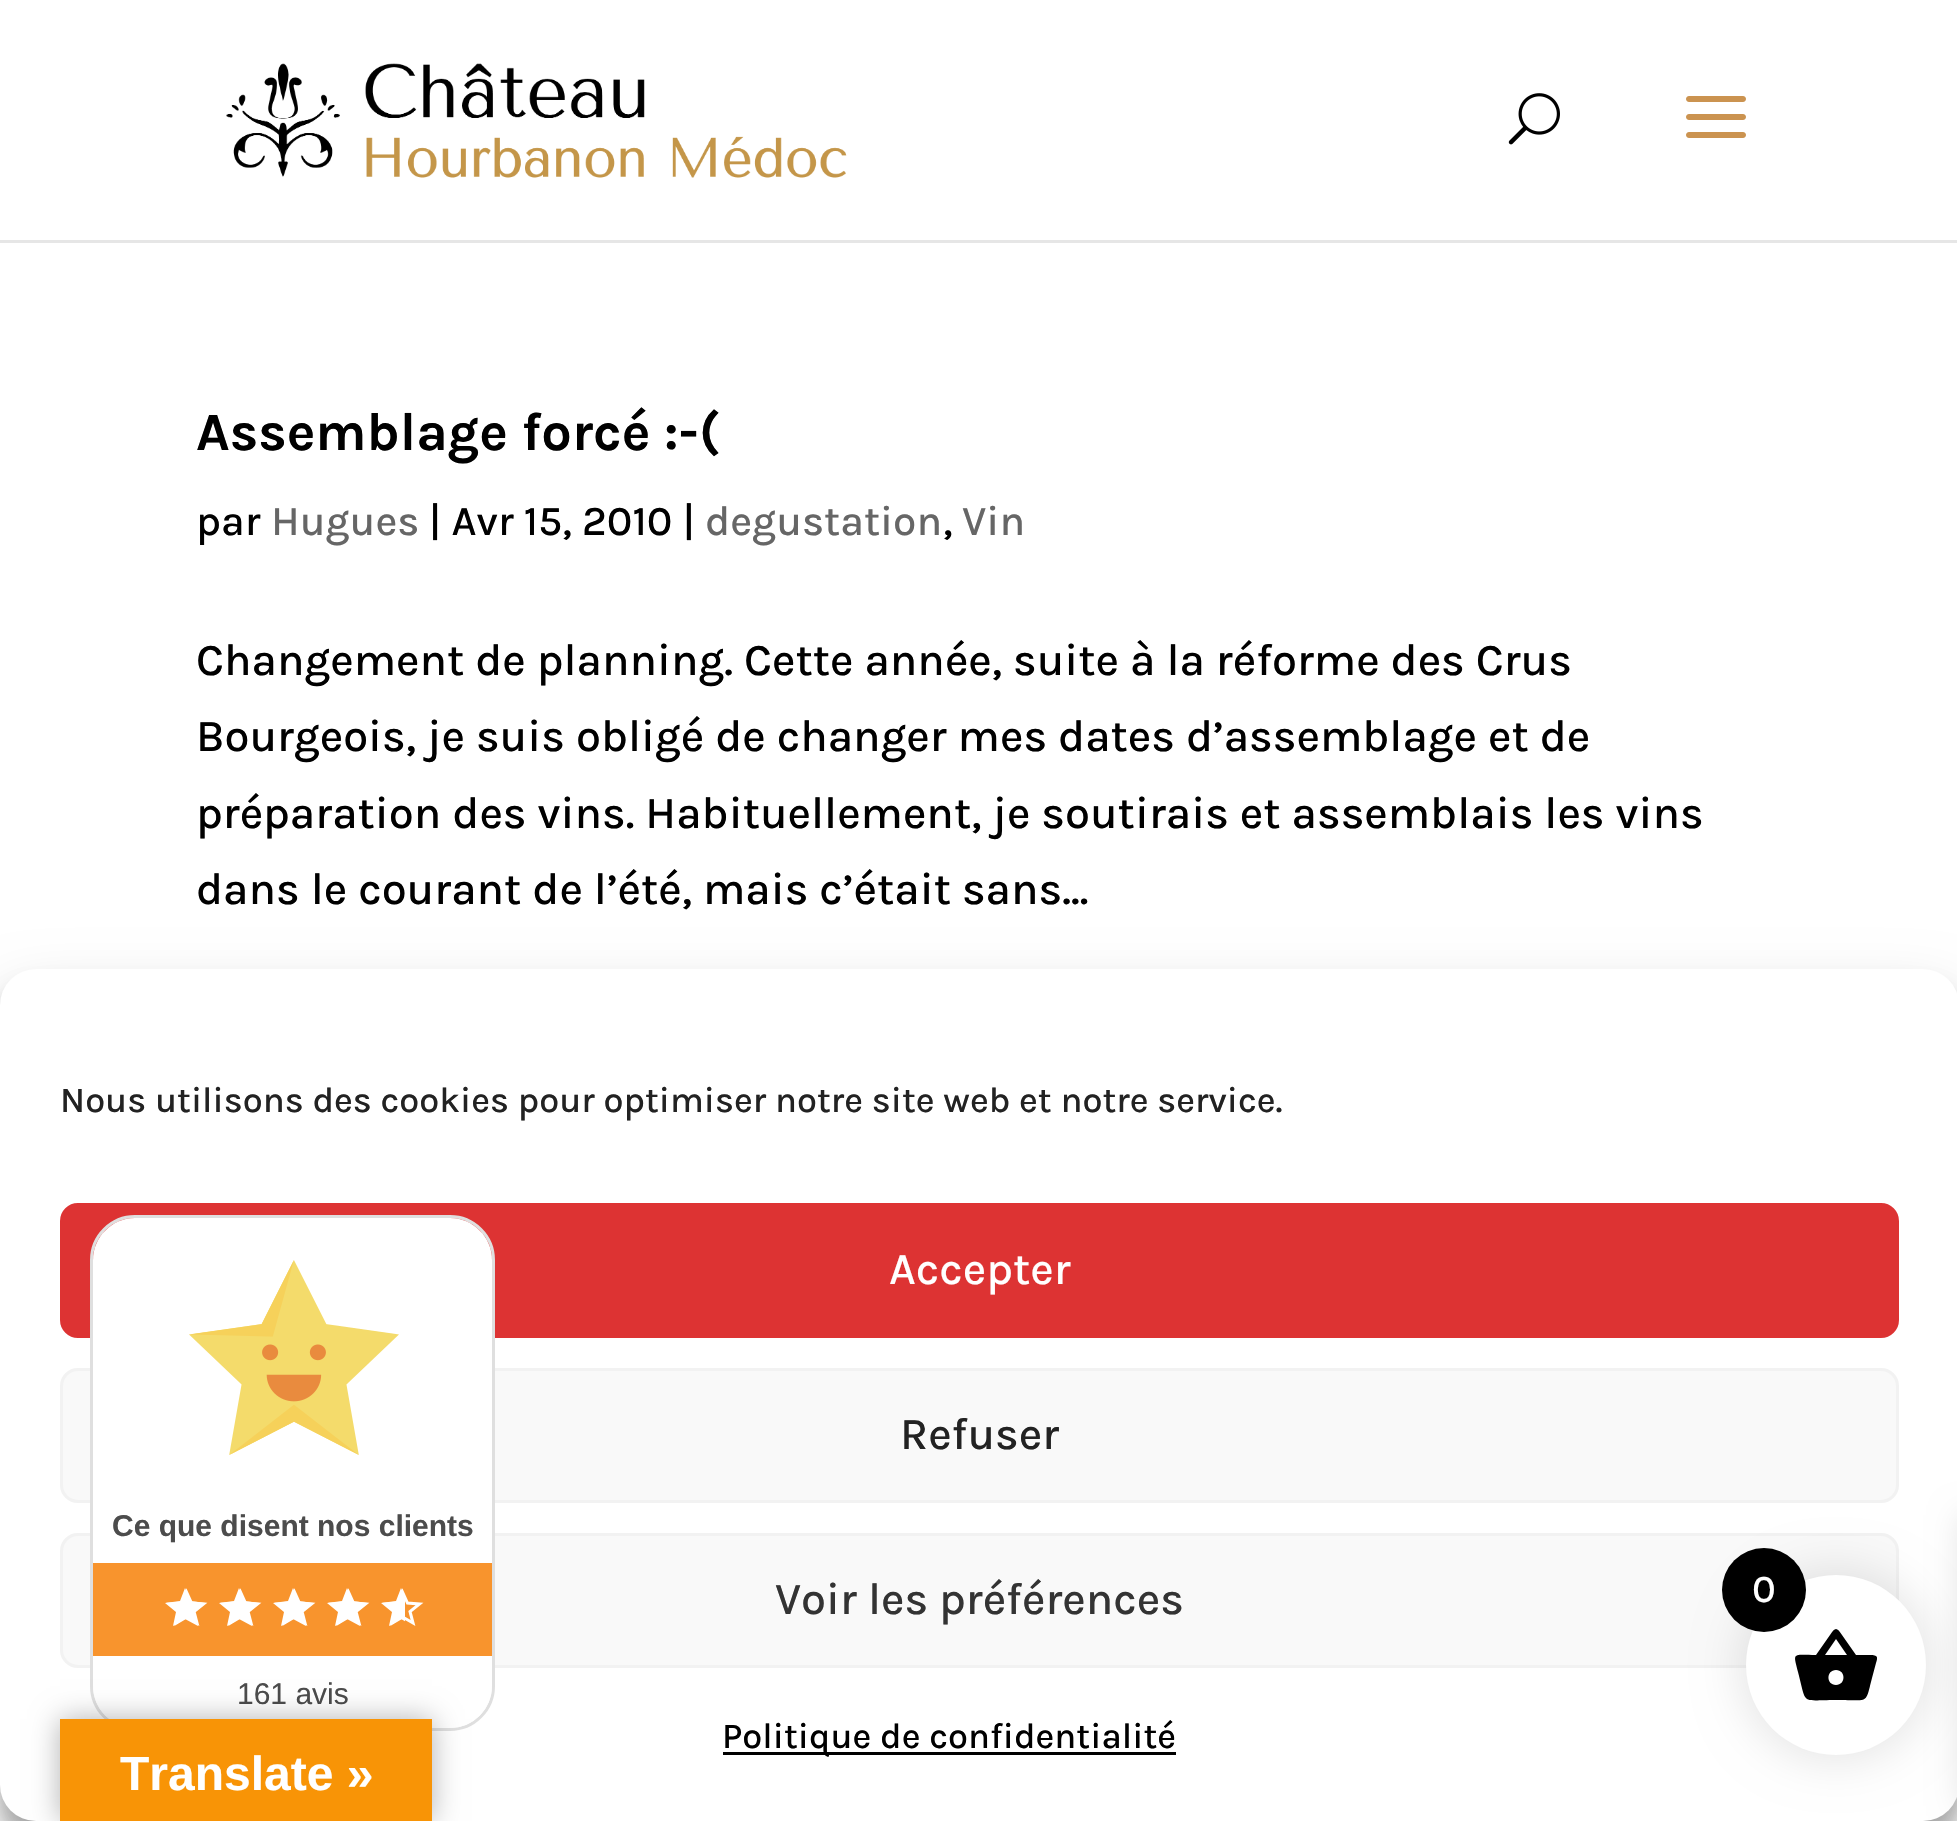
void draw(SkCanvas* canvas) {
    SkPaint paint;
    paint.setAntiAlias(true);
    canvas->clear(0xFFFFFFFF);
    paint.setColor(0xFFE6E6E6);
    canvas->drawRect(SkRect::MakeXYWH(0, 240, 1957, 3), paint);
    canvas->drawImageRect(SkImages::DeferredFromEncodedData(SkData::MakeFromFileName("img1.png")), SkRect::MakeXYWH(226, 63, 621, 115), SkSamplingOptions());
    canvas->drawImageRect(SkImages::DeferredFromEncodedData(SkData::MakeFromFileName("img2.png")), SkRect::MakeXYWH(1508, 93, 52, 52), SkSamplingOptions());
    canvas->drawImageRect(SkImages::DeferredFromEncodedData(SkData::MakeFromFileName("img3.png")), SkRect::MakeXYWH(1686, 96, 60, 42), SkSamplingOptions());
    SkFont font1(fontMgr->matchFamilyStyle("Karla", SkFontStyle::Bold()), 54);
    font1.setSubpixel(true);
    paint.setColor(0xFF000000);
    canvas->drawString("Assemblage forcé :-(", 196, 450, font1, paint);
    SkFont font2(fontMgr->matchFamilyStyle("Karla", SkFontStyle(500, SkFontStyle::kNormal_Width, SkFontStyle::kUpright_Slant)), 42);
    font2.setSubpixel(true);
    canvas->drawString("par", 196, 535, font2, paint);
    paint.setColor(0xFF666666);
    canvas->drawString("Hugues", 271, 535, font2, paint);
    paint.setColor(0xFF000000);
    canvas->drawString("| Avr 15, 2010 |", 429, 535, font2, paint);
    paint.setColor(0xFF666666);
    canvas->drawString("degustation", 705, 535, font2, paint);
    paint.setColor(0xFF000000);
    canvas->drawString(",", 943, 535, font2, paint);
    paint.setColor(0xFF666666);
    canvas->drawString("Vin", 962, 535, font2, paint);
    SkFont font3(fontMgr->matchFamilyStyle("Karla", SkFontStyle(500, SkFontStyle::kNormal_Width, SkFontStyle::kUpright_Slant)), 45);
    font3.setSubpixel(true);
    paint.setColor(0xFF000000);
    canvas->drawString("Changement de planning. Cette année, suite à la réforme des Crus", 196, 675, font3, paint);
    canvas->drawString("Bourgeois, je suis obligé de changer mes dates d’assemblage et de", 196, 751, font3, paint);
    canvas->drawString("préparation des vins. Habituellement, je soutirais et assemblais les vins", 196, 828, font3, paint);
    canvas->drawString("dans le courant de l’été, mais c’était sans...", 196, 904, font3, paint);
    paint.setColor(0x3B000000);
    paint.setMaskFilter(SkMaskFilter::MakeBlur(kNormal_SkBlurStyle, 9));
    canvas->drawRoundRect(SkRect::MakeXYWH(0, 987, 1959, 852), 36, 36, paint);
    paint.setMaskFilter(nullptr);
    paint.setColor(0x30000000);
    paint.setMaskFilter(SkMaskFilter::MakeBlur(kNormal_SkBlurStyle, 30));
    canvas->drawRoundRect(SkRect::MakeXYWH(0, 999, 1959, 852), 36, 36, paint);
    paint.setMaskFilter(nullptr);
    paint.setColor(0xFFFFFFFF);
    canvas->drawRoundRect(SkRect::MakeXYWH(0, 969, 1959, 852), 36, 36, paint);
    SkFont font4(fontMgr->matchFamilyStyle("Karla", SkFontStyle(500, SkFontStyle::kNormal_Width, SkFontStyle::kUpright_Slant)), 36);
    font4.setSubpixel(true);
    paint.setColor(0xFF222222);
    canvas->drawString("Nous utilisons des cookies pour optimiser notre site web et notre service.", 60, 1112, font4, paint);
    paint.setColor(0xFFDD3333);
    canvas->drawRoundRect(SkRect::MakeXYWH(61.5f, 1204.5f, 1836, 132), 16.5f, 16.5f, paint);
    paint.setStyle(SkPaint::kStroke_Style);
    paint.setStrokeWidth(3);
    canvas->drawRoundRect(SkRect::MakeXYWH(61.5f, 1204.5f, 1836, 132), 16.5f, 16.5f, paint);
    paint.setStyle(SkPaint::kFill_Style);
    paint.setColor(0xFFFFFFFF);
    canvas->drawString("Accepter", 889, 1284, font3, paint);
    paint.setColor(0xFFF9F9F9);
    canvas->drawRoundRect(SkRect::MakeXYWH(61.5f, 1369.5f, 1836, 132), 16.5f, 16.5f, paint);
    paint.setStyle(SkPaint::kStroke_Style);
    paint.setColor(0xFFF2F2F2);
    canvas->drawRoundRect(SkRect::MakeXYWH(61.5f, 1369.5f, 1836, 132), 16.5f, 16.5f, paint);
    paint.setStyle(SkPaint::kFill_Style);
    paint.setColor(0xFF222222);
    canvas->drawString("Refuser", 900, 1449, font3, paint);
    paint.setColor(0xFFF9F9F9);
    canvas->drawRoundRect(SkRect::MakeXYWH(61.5f, 1534.5f, 1836, 132), 16.5f, 16.5f, paint);
    paint.setStyle(SkPaint::kStroke_Style);
    paint.setColor(0xFFF2F2F2);
    canvas->drawRoundRect(SkRect::MakeXYWH(61.5f, 1534.5f, 1836, 132), 16.5f, 16.5f, paint);
    paint.setStyle(SkPaint::kFill_Style);
    paint.setColor(0xFF333333);
    canvas->drawString("Voir les préférences", 775, 1614, font3, paint);
    paint.setColor(0xFF000000);
    canvas->drawRect(SkRect::MakeXYWH(723, 1752, 453, 3), paint);
    canvas->drawString("Politique de confidentialité", 722, 1748, font4, paint);
    paint.setStyle(SkPaint::kStroke_Style);
    paint.setColor(0xFFDFDFDF);
    canvas->drawRoundRect(SkRect::MakeXYWH(91.5f, 1216.5f, 402, 513), 43.5f, 43.5f, paint);
    paint.setStyle(SkPaint::kFill_Style);
    paint.setColor(0xFFFFFFFF);
    canvas->drawPath(SkPathBuilder().moveTo(135, 1218).lineTo(450, 1218).cubicTo(473, 1218, 492, 1237, 492, 1260).lineTo(492, 1563).lineTo(93, 1563).lineTo(93, 1260).cubicTo(93, 1237, 112, 1218, 135, 1218).close().detach(), paint);
    paint.setColor(0xFFF8942D);
    canvas->drawRect(SkRect::MakeXYWH(93, 1563, 399, 93), paint);
    paint.setColor(0xFFFFFFFF);
    canvas->drawPath(SkPathBuilder().moveTo(93, 1656).lineTo(492, 1656).lineTo(492, 1686).cubicTo(492, 1709, 473, 1728, 450, 1728).lineTo(135, 1728).cubicTo(112, 1728, 93, 1709, 93, 1686).close().detach(), paint);
    canvas->drawImageRect(SkImages::DeferredFromEncodedData(SkData::MakeFromFileName("img4.png")), SkRect::MakeXYWH(189, 1260, 210, 195), SkSamplingOptions());
    SkFont font5(fontMgr->matchFamilyStyle("Liberation Sans", SkFontStyle::Bold()), 30);
    font5.setSubpixel(true);
    paint.setColor(0xFF4C4C4C);
    canvas->drawString("Ce que disent nos clients", 112, 1536, font5, paint);
    paint.setStyle(SkPaint::kStroke_Style);
    paint.setColor(0xFFFFFFFF);
    canvas->drawPath(SkPathBuilder().moveTo(187.5f, 1617.5f).lineTo(186.5f, 1617).lineTo(176.5f, 1623).lineTo(179, 1611.5f).lineTo(170, 1604).lineTo(182, 1603).lineTo(186.5f, 1592).lineTo(191.5f, 1603).lineTo(203.5f, 1604).lineTo(194, 1611.5f).lineTo(197, 1623).close().detach(), paint);
    paint.setStyle(SkPaint::kFill_Style);
    canvas->drawPath(SkPathBuilder().moveTo(185, 1619).lineTo(198, 1626).lineTo(195, 1612).lineTo(206, 1603).lineTo(191, 1601).lineTo(185, 1588).lineTo(180, 1601).lineTo(165, 1603).lineTo(176, 1612).lineTo(173, 1626).close().detach(), paint);
    paint.setStyle(SkPaint::kStroke_Style);
    canvas->drawPath(SkPathBuilder().moveTo(241.5f, 1617.5f).lineTo(240.5f, 1617).lineTo(230.5f, 1623).lineTo(233, 1611.5f).lineTo(224, 1604).lineTo(236, 1603).lineTo(240.5f, 1592).lineTo(245.5f, 1603).lineTo(257.5f, 1604).lineTo(248, 1611.5f).lineTo(251, 1623).close().detach(), paint);
    paint.setStyle(SkPaint::kFill_Style);
    canvas->drawPath(SkPathBuilder().moveTo(239, 1619).lineTo(252, 1626).lineTo(249, 1612).lineTo(260, 1603).lineTo(245, 1601).lineTo(239, 1588).lineTo(234, 1601).lineTo(219, 1603).lineTo(230, 1612).lineTo(227, 1626).close().detach(), paint);
    paint.setStyle(SkPaint::kStroke_Style);
    canvas->drawPath(SkPathBuilder().moveTo(295.5f, 1617.5f).lineTo(294.5f, 1617).lineTo(284.5f, 1623).lineTo(287, 1611.5f).lineTo(278, 1604).lineTo(290, 1603).lineTo(294.5f, 1592).lineTo(299.5f, 1603).lineTo(311.5f, 1604).lineTo(302, 1611.5f).lineTo(305, 1623).close().detach(), paint);
    paint.setStyle(SkPaint::kFill_Style);
    canvas->drawPath(SkPathBuilder().moveTo(293, 1619).lineTo(306, 1626).lineTo(303, 1612).lineTo(314, 1603).lineTo(299, 1601).lineTo(293, 1588).lineTo(288, 1601).lineTo(273, 1603).lineTo(284, 1612).lineTo(281, 1626).close().detach(), paint);
    paint.setStyle(SkPaint::kStroke_Style);
    canvas->drawPath(SkPathBuilder().moveTo(349.5f, 1617.5f).lineTo(348.5f, 1617).lineTo(338.5f, 1623).lineTo(341, 1611.5f).lineTo(332, 1604).lineTo(344, 1603).lineTo(348.5f, 1592).lineTo(353.5f, 1603).lineTo(365.5f, 1604).lineTo(356, 1611.5f).lineTo(359, 1623).close().detach(), paint);
    paint.setStyle(SkPaint::kFill_Style);
    canvas->drawPath(SkPathBuilder().moveTo(347, 1619).lineTo(360, 1626).lineTo(357, 1612).lineTo(368, 1603).lineTo(353, 1601).lineTo(347, 1588).lineTo(342, 1601).lineTo(327, 1603).lineTo(338, 1612).lineTo(335, 1626).close().detach(), paint);
    paint.setStyle(SkPaint::kStroke_Style);
    canvas->drawPath(SkPathBuilder().moveTo(403.5f, 1617.5f).lineTo(402.5f, 1617).lineTo(392.5f, 1623).lineTo(395, 1611.5f).lineTo(386, 1604).lineTo(398, 1603).lineTo(402.5f, 1592).lineTo(407.5f, 1603).lineTo(419.5f, 1604).lineTo(410, 1611.5f).lineTo(413, 1623).close().detach(), paint);
    canvas->save();
    canvas->clipRect(SkRect::MakeXYWH(381, 1587, 24, 39));
    paint.setStyle(SkPaint::kFill_Style);
    canvas->drawPath(SkPathBuilder().moveTo(401, 1619).lineTo(414, 1626).lineTo(411, 1612).lineTo(422, 1603).lineTo(407, 1601).lineTo(401, 1588).lineTo(396, 1601).lineTo(381, 1603).lineTo(392, 1612).lineTo(389, 1626).close().detach(), paint);
    canvas->restore();
    SkFont font6(fontMgr->matchFamilyStyle("Liberation Sans", SkFontStyle::Normal()), 30);
    font6.setSubpixel(true);
    paint.setColor(0xFF4C4C4C);
    canvas->drawString("161 avis", 237, 1704, font6, paint);
    paint.setColor(0x1A000000);
    paint.setMaskFilter(SkMaskFilter::MakeBlur(kNormal_SkBlurStyle, 22.5f));
    canvas->drawRoundRect(SkRect::MakeXYWH(1740, 1569, 192, 192), 96, 96, paint);
    paint.setMaskFilter(nullptr);
    paint.setMaskFilter(SkMaskFilter::MakeBlur(kNormal_SkBlurStyle, 15));
    canvas->drawRect(SkRect::MakeXYWH(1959, 1515, 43, 291), paint);
    paint.setMaskFilter(nullptr);
    paint.setColor(0xFFFFFFFF);
    canvas->drawCircle(1836, 1665, 90, paint);
    paint.setColor(0xFF000000);
    canvas->drawPath(SkPathBuilder().moveTo(1836, 1685).cubicTo(1846, 1685, 1846, 1670, 1836, 1670).cubicTo(1826, 1670, 1826, 1685, 1836, 1685).close().moveTo(1825, 1655).lineTo(1847, 1655).lineTo(1836, 1639).close().moveTo(1856, 1655).lineTo(1870, 1655).cubicTo(1878, 1655, 1878, 1657, 1876, 1663).lineTo(1872, 1678).cubicTo(1865, 1705, 1870, 1700, 1836, 1700).cubicTo(1800, 1700, 1807, 1706, 1798, 1672).cubicTo(1793, 1652, 1792, 1655, 1816, 1655).lineTo(1830, 1635).cubicTo(1835, 1627, 1837, 1627, 1842, 1635).close().detach(), paint);
    canvas->drawCircle(1764, 1590, 42, paint);
    SkFont font7(fontMgr->matchFamilyStyle("Karla", SkFontStyle(500, SkFontStyle::kNormal_Width, SkFontStyle::kUpright_Slant)), 39);
    font7.setSubpixel(true);
    paint.setColor(0xFFFFFFFF);
    canvas->drawString("0", 1752, 1602, font7, paint);
    paint.setColor(0x4D000000);
    paint.setMaskFilter(SkMaskFilter::MakeBlur(kNormal_SkBlurStyle, 13.5f));
    canvas->drawRect(SkRect::MakeXYWH(60, 1719, 372, 102), paint);
    paint.setMaskFilter(nullptr);
    paint.setColor(0xFFF89406);
    canvas->drawRect(SkRect::MakeXYWH(60, 1719, 372, 102), paint);
    SkFont font8(fontMgr->matchFamilyStyle("Liberation Sans", SkFontStyle::Bold()), 48);
    font8.setSubpixel(true);
    paint.setColor(0xFFFFFFFF);
    canvas->drawString("Translate »", 120, 1790, font8, paint);
}
